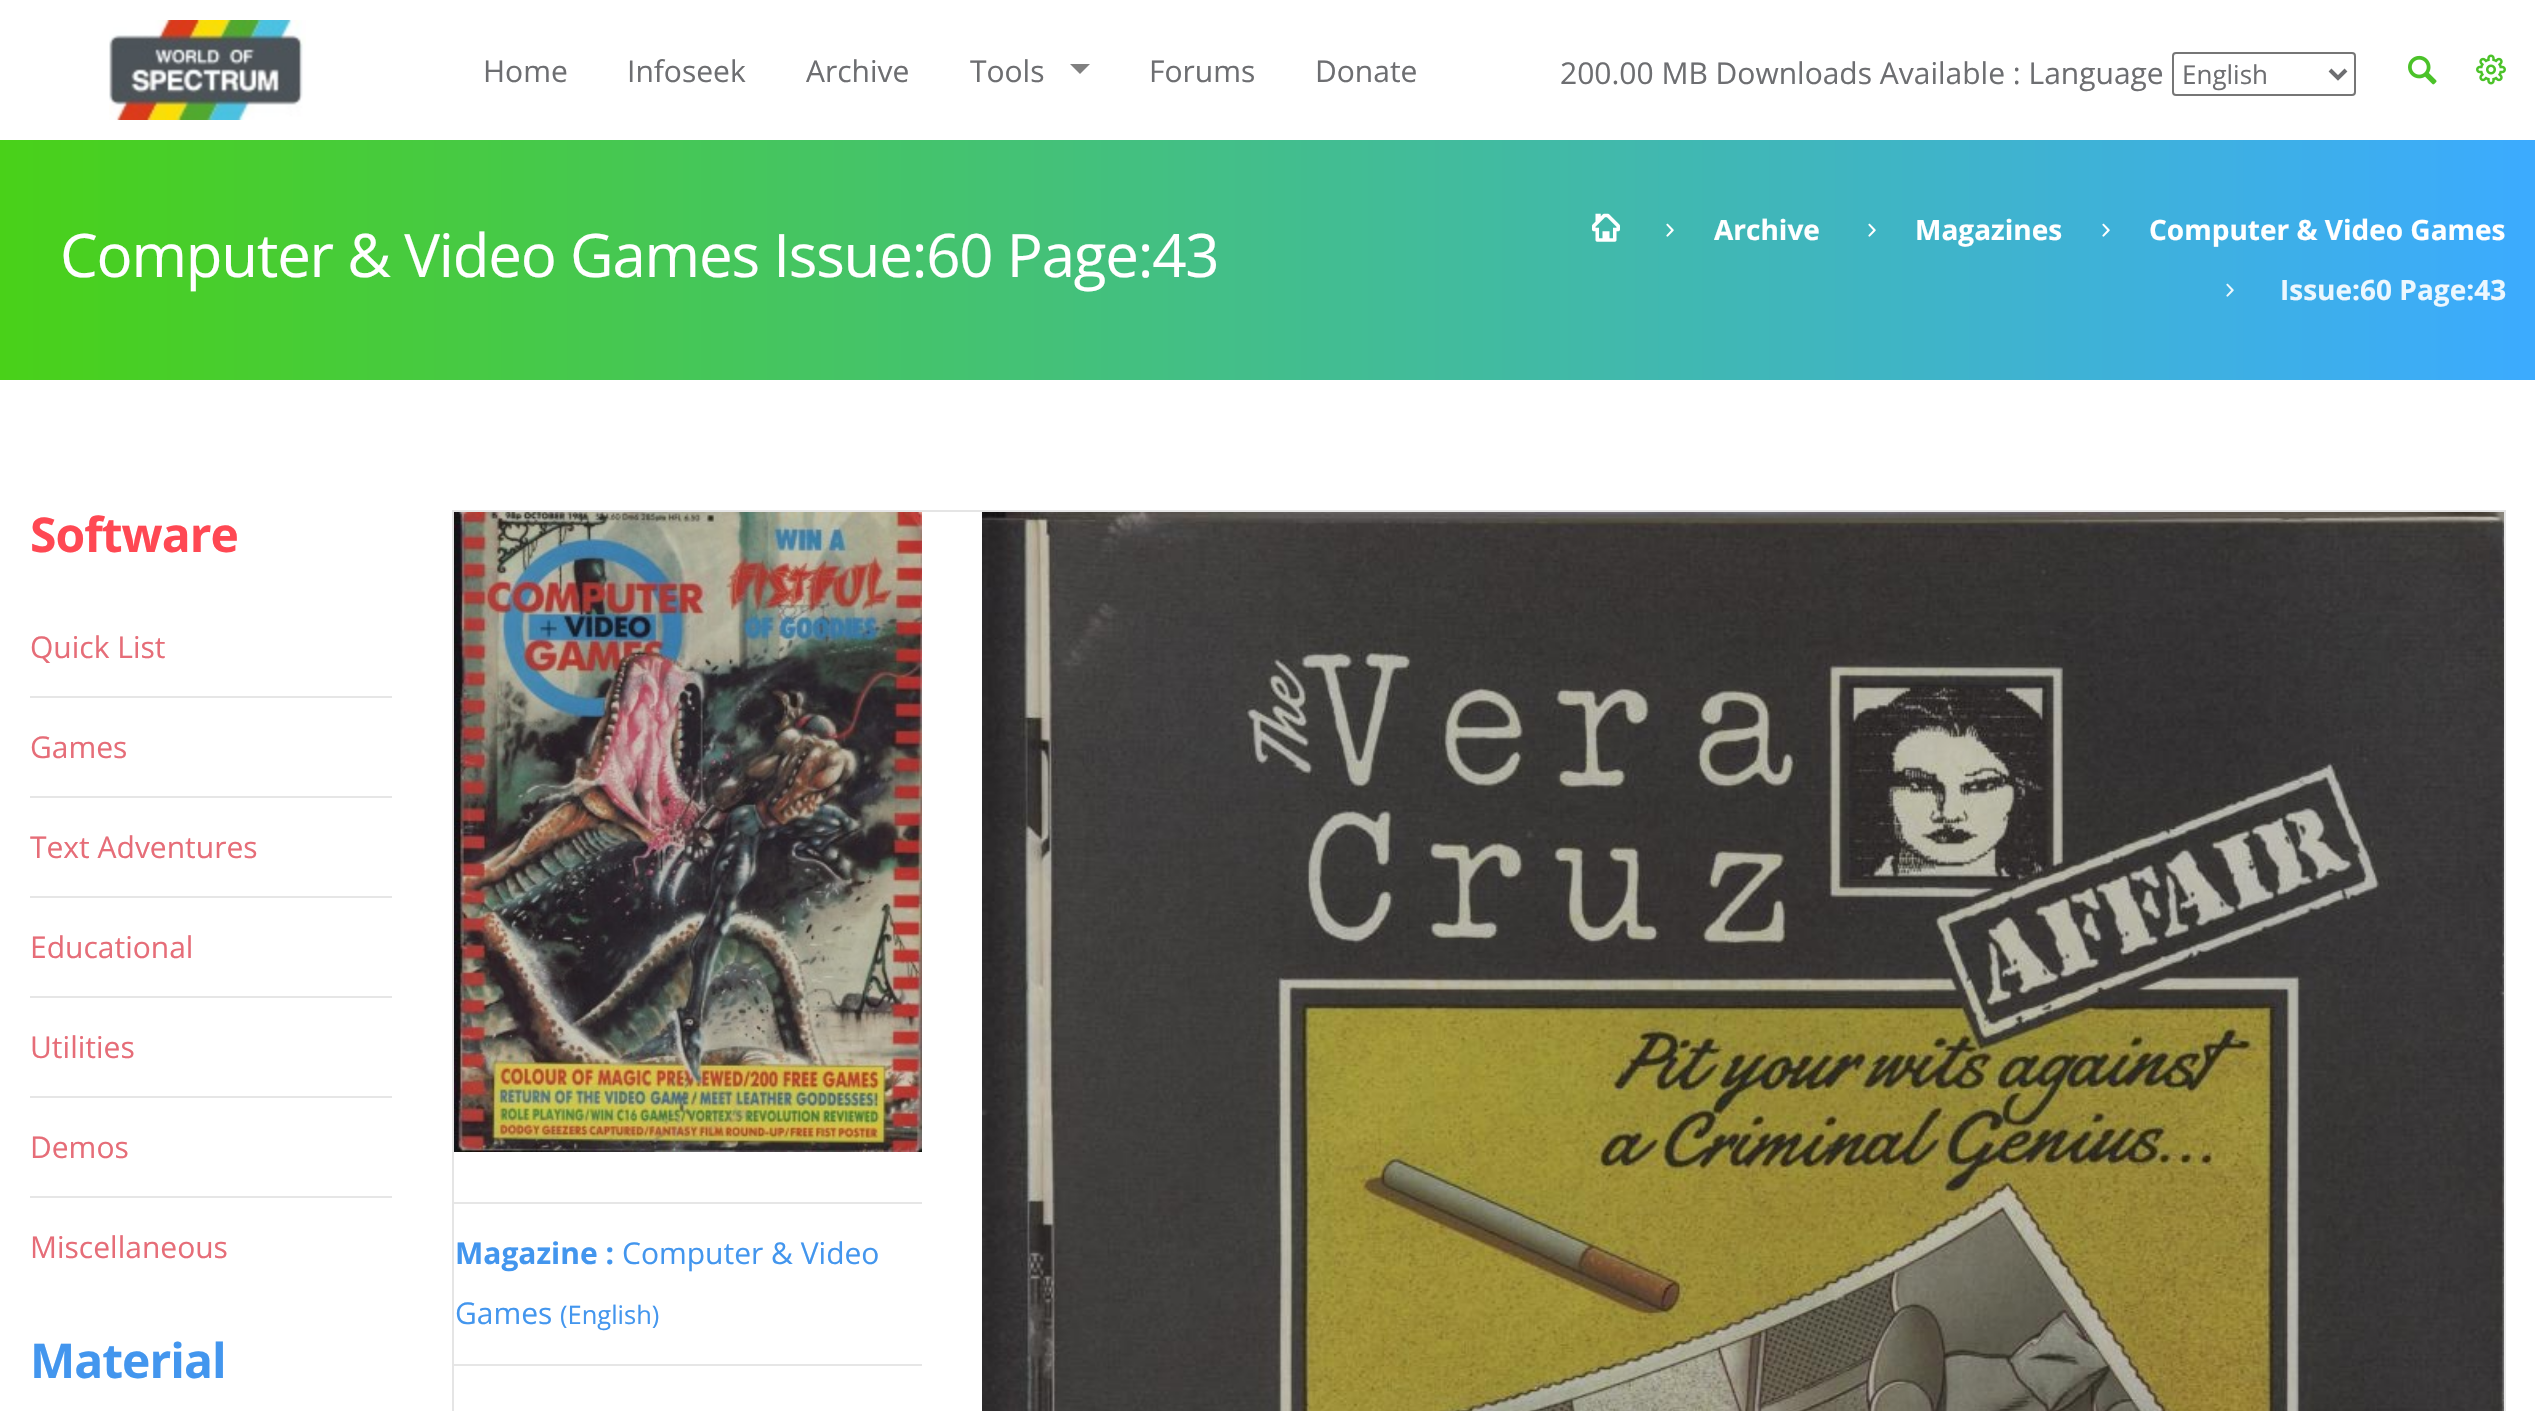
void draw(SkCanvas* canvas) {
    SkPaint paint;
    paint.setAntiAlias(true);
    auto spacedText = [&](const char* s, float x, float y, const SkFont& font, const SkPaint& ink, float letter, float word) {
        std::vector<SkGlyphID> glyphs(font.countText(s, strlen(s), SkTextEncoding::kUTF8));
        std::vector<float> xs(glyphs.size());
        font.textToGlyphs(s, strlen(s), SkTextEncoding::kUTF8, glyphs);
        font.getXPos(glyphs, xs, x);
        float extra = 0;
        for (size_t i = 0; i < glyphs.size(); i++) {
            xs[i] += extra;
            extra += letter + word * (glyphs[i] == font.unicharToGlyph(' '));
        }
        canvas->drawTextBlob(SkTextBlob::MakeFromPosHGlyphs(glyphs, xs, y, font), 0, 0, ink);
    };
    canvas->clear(0xFFFFFFFF);
    canvas->drawImageRect(SkImages::DeferredFromEncodedData(SkData::MakeFromFileName("img1.png")), SkRect::MakeXYWH(109, 20, 197, 100), SkSamplingOptions());
    SkFont font1(fontMgr->matchFamilyStyle("Open Sans", SkFontStyle::Normal()), 30);
    font1.setSubpixel(true);
    paint.setColor(0xFF6D6E71);
    canvas->drawString("Home", 483, 82, font1, paint);
    canvas->drawString("Infoseek", 627, 82, font1, paint);
    canvas->drawString("Archive", 806, 82, font1, paint);
    canvas->drawString("Tools", 970, 82, font1, paint);
    paint.setColor(0xFF808080);
    canvas->drawPath(SkPathBuilder().moveTo(1070, 64).lineTo(1090, 64).lineTo(1080, 74).close().detach(), paint);
    paint.setColor(0xFF6D6E71);
    canvas->drawString("Forums", 1149, 82, font1, paint);
    canvas->drawString("Donate", 1315, 82, font1, paint);
    canvas->drawString("200.00 MB Downloads Available : Language", 1560, 84, font1, paint);
    paint.setStyle(SkPaint::kStroke_Style);
    paint.setStrokeWidth(2);
    paint.setColor(0xFF767676);
    canvas->drawRoundRect(SkRect::MakeXYWH(2173, 53, 182, 42), 3, 3, paint);
    paint.setStrokeWidth(4);
    paint.setColor(0xFF6D6E71);
    canvas->drawPath(SkPathBuilder().moveTo(2330, 70).lineTo(2338, 78).lineTo(2346, 70).detach(), paint);
    SkFont font2(fontMgr->matchFamilyStyle("Open Sans", SkFontStyle::Normal()), 26);
    font2.setSubpixel(true);
    paint.setStyle(SkPaint::kFill_Style);
    canvas->drawString("English", 2182, 84, font2, paint);
    canvas->drawImageRect(SkImages::DeferredFromEncodedData(SkData::MakeFromFileName("img2.png")), SkRect::MakeXYWH(2408, 55, 29, 30), SkSamplingOptions());
    canvas->drawImageRect(SkImages::DeferredFromEncodedData(SkData::MakeFromFileName("img3.png")), SkRect::MakeXYWH(2476, 54, 30, 31), SkSamplingOptions());
    {
        const SkColor colors[] = {0xFF49D119, 0xFF3CABFF};
        const float stops[] = {0, 1};
        const SkPoint ends[] = {{0, 260}, {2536, 260}};
        paint.setShader(SkGradientShader::MakeLinear(ends, colors, stops, 2, SkTileMode::kClamp));
        paint.setAlpha(255);
    }
    canvas->drawRect(SkRect::MakeXYWH(0, 140, 2535, 240), paint);
    SkFont font3(fontMgr->matchFamilyStyle("Open Sans", SkFontStyle::Normal()), 60);
    font3.setSubpixel(true);
    paint.setShader(nullptr);
    paint.setColor(0xFFFFFFFF);
    spacedText("Computer & Video Games Issue:60 Page:43", 60, 277, font3, paint, -1.2f, 0);
    canvas->drawImageRect(SkImages::DeferredFromEncodedData(SkData::MakeFromFileName("img4.png")), SkRect::MakeXYWH(1592, 213, 28, 29), SkSamplingOptions());
    canvas->drawImageRect(SkImages::DeferredFromEncodedData(SkData::MakeFromFileName("img5.png")), SkRect::MakeXYWH(1666, 223, 8, 14), SkSamplingOptions());
    SkFont font4(fontMgr->matchFamilyStyle("Open Sans", SkFontStyle::Bold()), 28);
    font4.setSubpixel(true);
    canvas->drawString("Archive", 1714, 240, font4, paint);
    canvas->drawImageRect(SkImages::DeferredFromEncodedData(SkData::MakeFromFileName("img6.png")), SkRect::MakeXYWH(1868, 223, 8, 14), SkSamplingOptions());
    canvas->drawString("Magazines", 1915, 240, font4, paint);
    canvas->drawImageRect(SkImages::DeferredFromEncodedData(SkData::MakeFromFileName("img7.png")), SkRect::MakeXYWH(2102, 223, 8, 14), SkSamplingOptions());
    canvas->drawString("Computer & Video Games", 2149, 240, font4, paint);
    canvas->drawImageRect(SkImages::DeferredFromEncodedData(SkData::MakeFromFileName("img8.png")), SkRect::MakeXYWH(2226, 283, 8, 14), SkSamplingOptions());
    paint.setColor(0xFFECF7FE);
    canvas->drawString("Issue:60 Page:43", 2280, 300, font4, paint);
    SkFont font5(fontMgr->matchFamilyStyle("Open Sans", SkFontStyle::Bold()), 48);
    font5.setSubpixel(true);
    paint.setColor(0xFFFF4853);
    spacedText("Software", 30, 552, font5, paint, -1, 0);
    paint.setColor(0xFFE66D78);
    canvas->drawString("Quick List", 30, 658, font1, paint);
    paint.setColor(0xFFE6E6E6);
    canvas->drawRect(SkRect::MakeXYWH(30, 696, 362, 2), paint);
    paint.setColor(0xFFE66D78);
    canvas->drawString("Games", 30, 758, font1, paint);
    paint.setColor(0xFFE6E6E6);
    canvas->drawRect(SkRect::MakeXYWH(30, 796, 362, 2), paint);
    paint.setColor(0xFFE66D78);
    canvas->drawString("Text Adventures", 30, 858, font1, paint);
    paint.setColor(0xFFE6E6E6);
    canvas->drawRect(SkRect::MakeXYWH(30, 896, 362, 2), paint);
    paint.setColor(0xFFE66D78);
    canvas->drawString("Educational", 30, 958, font1, paint);
    paint.setColor(0xFFE6E6E6);
    canvas->drawRect(SkRect::MakeXYWH(30, 996, 362, 2), paint);
    paint.setColor(0xFFE66D78);
    canvas->drawString("Utilities", 30, 1058, font1, paint);
    paint.setColor(0xFFE6E6E6);
    canvas->drawRect(SkRect::MakeXYWH(30, 1096, 362, 2), paint);
    paint.setColor(0xFFE66D78);
    canvas->drawString("Demos", 30, 1158, font1, paint);
    paint.setColor(0xFFE6E6E6);
    canvas->drawRect(SkRect::MakeXYWH(30, 1196, 362, 2), paint);
    paint.setColor(0xFFE66D78);
    canvas->drawString("Miscellaneous", 30, 1258, font1, paint);
    paint.setColor(0xFF4396EE);
    spacedText("Material", 30, 1378, font5, paint, -1, 0);
    paint.setStyle(SkPaint::kStroke_Style);
    paint.setStrokeWidth(2);
    paint.setColor(0xFFE5E5E5);
    canvas->drawRect(SkRect::MakeXYWH(453, 511, 2052, 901), paint);
    canvas->drawImageRect(SkImages::DeferredFromEncodedData(SkData::MakeFromFileName("img9.png")), SkRect::MakeXYWH(454, 512, 468, 640), SkSamplingOptions());
    paint.setStyle(SkPaint::kFill_Style);
    paint.setColor(0xFFE6E6E6);
    canvas->drawRect(SkRect::MakeXYWH(454, 1202, 468, 2), paint);
    canvas->drawRect(SkRect::MakeXYWH(454, 1364, 468, 2), paint);
    SkFont font6(fontMgr->matchFamilyStyle("Open Sans", SkFontStyle::Bold()), 30);
    font6.setSubpixel(true);
    paint.setColor(0xFF4396EE);
    canvas->drawString("Magazine :", 455, 1264, font6, paint);
    canvas->drawString("Computer & Video", 622, 1264, font1, paint);
    canvas->drawString("Games", 455, 1324, font1, paint);
    SkFont font7(fontMgr->matchFamilyStyle("Open Sans", SkFontStyle::Normal()), 25.5f);
    font7.setSubpixel(true);
    canvas->drawString("(English)", 560, 1324, font7, paint);
    canvas->drawImageRect(SkImages::DeferredFromEncodedData(SkData::MakeFromFileName("img10.png")), SkRect::MakeXYWH(982, 512, 1522, 899), SkSamplingOptions());
}
